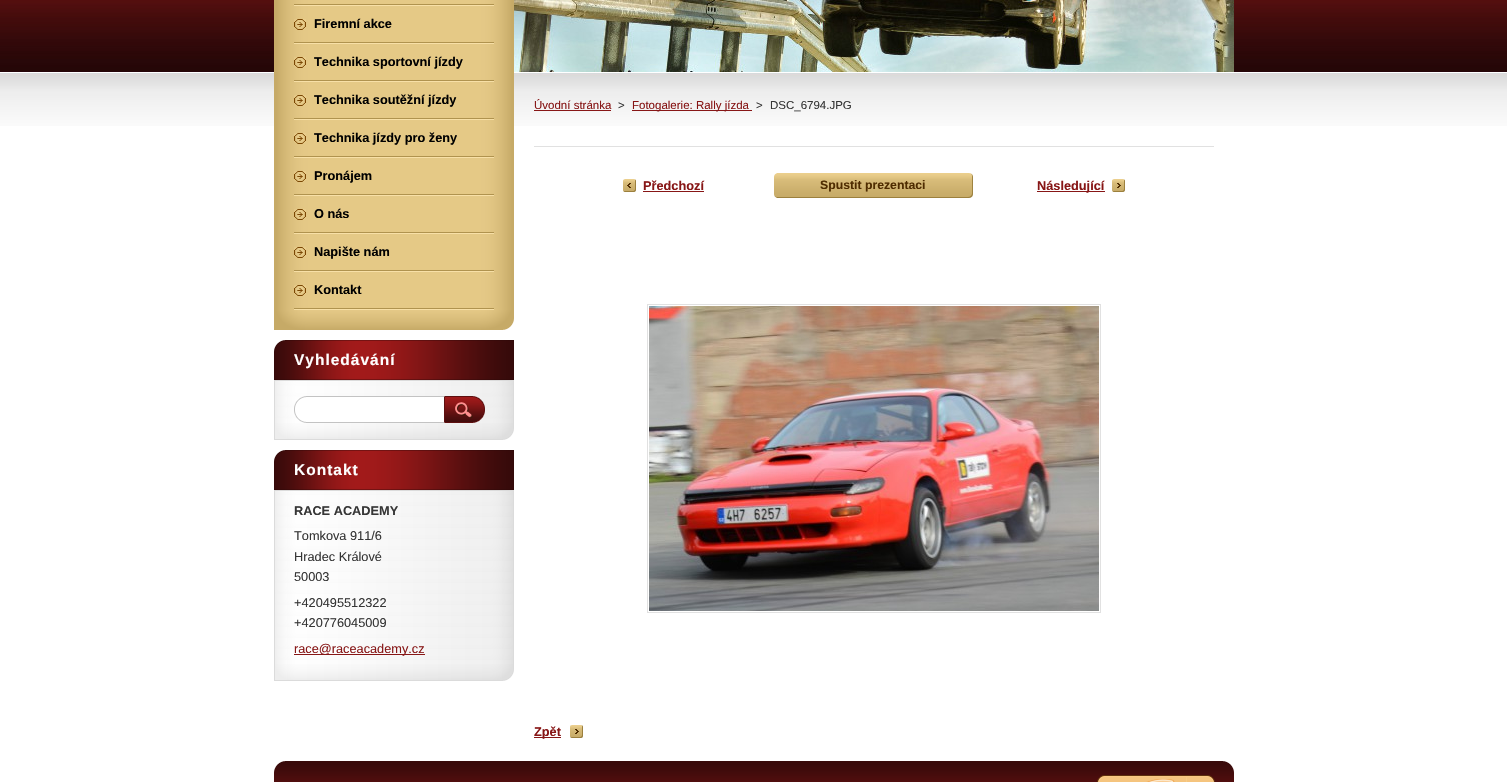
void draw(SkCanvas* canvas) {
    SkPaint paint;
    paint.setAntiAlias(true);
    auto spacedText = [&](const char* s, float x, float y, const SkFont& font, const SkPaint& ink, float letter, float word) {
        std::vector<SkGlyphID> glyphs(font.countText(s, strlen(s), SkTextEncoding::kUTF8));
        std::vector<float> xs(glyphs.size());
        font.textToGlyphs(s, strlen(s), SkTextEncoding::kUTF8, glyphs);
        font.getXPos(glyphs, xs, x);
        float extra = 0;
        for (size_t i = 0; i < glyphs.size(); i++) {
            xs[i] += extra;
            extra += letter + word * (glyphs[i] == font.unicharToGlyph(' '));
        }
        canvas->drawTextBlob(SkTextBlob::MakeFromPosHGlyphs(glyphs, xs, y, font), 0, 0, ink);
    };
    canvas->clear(0xFFFFFFFF);
    canvas->drawImageRect(SkImages::DeferredFromEncodedData(SkData::MakeFromFileName("img1.png")), SkRect::MakeXYWH(0, 0, 1507, 126), SkSamplingOptions());
    canvas->drawImageRect(SkImages::DeferredFromEncodedData(SkData::MakeFromFileName("img2.png")), SkRect::MakeXYWH(274, 310, 240, 20), SkSamplingOptions());
    canvas->drawImageRect(SkImages::DeferredFromEncodedData(SkData::MakeFromFileName("img3.png")), SkRect::MakeXYWH(274, 0, 240, 310), SkSamplingOptions());
    canvas->drawImageRect(SkImages::DeferredFromEncodedData(SkData::MakeFromFileName("img4.png")), SkRect::MakeXYWH(294, 4, 200, 2), SkSamplingOptions());
    canvas->drawImageRect(SkImages::DeferredFromEncodedData(SkData::MakeFromFileName("img4.png")), SkRect::MakeXYWH(294, 42, 200, 2), SkSamplingOptions());
    canvas->drawImageRect(SkImages::DeferredFromEncodedData(SkData::MakeFromFileName("img5.png")), SkRect::MakeXYWH(294, 19, 12, 11), SkSamplingOptions());
    SkFont font1(fontMgr->matchFamilyStyle("Liberation Sans", SkFontStyle::Bold()), 12.75f);
    font1.setSubpixel(true);
    paint.setColor(0xFF000000);
    canvas->drawString("Firemní akce", 314, 28, font1, paint);
    canvas->drawImageRect(SkImages::DeferredFromEncodedData(SkData::MakeFromFileName("img4.png")), SkRect::MakeXYWH(294, 80, 200, 2), SkSamplingOptions());
    canvas->drawImageRect(SkImages::DeferredFromEncodedData(SkData::MakeFromFileName("img5.png")), SkRect::MakeXYWH(294, 57, 12, 11), SkSamplingOptions());
    canvas->drawString("Technika sportovní jízdy", 314, 66, font1, paint);
    canvas->drawImageRect(SkImages::DeferredFromEncodedData(SkData::MakeFromFileName("img4.png")), SkRect::MakeXYWH(294, 118, 200, 2), SkSamplingOptions());
    canvas->drawImageRect(SkImages::DeferredFromEncodedData(SkData::MakeFromFileName("img5.png")), SkRect::MakeXYWH(294, 95, 12, 11), SkSamplingOptions());
    canvas->drawString("Technika soutěžní jízdy", 314, 104, font1, paint);
    canvas->drawImageRect(SkImages::DeferredFromEncodedData(SkData::MakeFromFileName("img4.png")), SkRect::MakeXYWH(294, 156, 200, 2), SkSamplingOptions());
    canvas->drawImageRect(SkImages::DeferredFromEncodedData(SkData::MakeFromFileName("img5.png")), SkRect::MakeXYWH(294, 133, 12, 11), SkSamplingOptions());
    canvas->drawString("Technika jízdy pro ženy", 314, 142, font1, paint);
    canvas->drawImageRect(SkImages::DeferredFromEncodedData(SkData::MakeFromFileName("img4.png")), SkRect::MakeXYWH(294, 194, 200, 2), SkSamplingOptions());
    canvas->drawImageRect(SkImages::DeferredFromEncodedData(SkData::MakeFromFileName("img5.png")), SkRect::MakeXYWH(294, 171, 12, 11), SkSamplingOptions());
    canvas->drawString("Pronájem", 314, 180, font1, paint);
    canvas->drawImageRect(SkImages::DeferredFromEncodedData(SkData::MakeFromFileName("img4.png")), SkRect::MakeXYWH(294, 232, 200, 2), SkSamplingOptions());
    canvas->drawImageRect(SkImages::DeferredFromEncodedData(SkData::MakeFromFileName("img5.png")), SkRect::MakeXYWH(294, 209, 12, 11), SkSamplingOptions());
    canvas->drawString("O nás", 314, 218, font1, paint);
    canvas->drawImageRect(SkImages::DeferredFromEncodedData(SkData::MakeFromFileName("img4.png")), SkRect::MakeXYWH(294, 270, 200, 2), SkSamplingOptions());
    canvas->drawImageRect(SkImages::DeferredFromEncodedData(SkData::MakeFromFileName("img5.png")), SkRect::MakeXYWH(294, 247, 12, 11), SkSamplingOptions());
    canvas->drawString("Napište nám", 314, 256, font1, paint);
    canvas->drawImageRect(SkImages::DeferredFromEncodedData(SkData::MakeFromFileName("img4.png")), SkRect::MakeXYWH(294, 308, 200, 2), SkSamplingOptions());
    canvas->drawImageRect(SkImages::DeferredFromEncodedData(SkData::MakeFromFileName("img5.png")), SkRect::MakeXYWH(294, 285, 12, 11), SkSamplingOptions());
    canvas->drawString("Kontakt", 314, 294, font1, paint);
    canvas->drawImageRect(SkImages::DeferredFromEncodedData(SkData::MakeFromFileName("img6.png")), SkRect::MakeXYWH(274, 423, 240, 17), SkSamplingOptions());
    canvas->drawImageRect(SkImages::DeferredFromEncodedData(SkData::MakeFromFileName("img7.png")), SkRect::MakeXYWH(274, 340, 240, 40), SkSamplingOptions());
    SkFont font2(fontMgr->matchFamilyStyle("Liberation Sans", SkFontStyle::Bold()), 15.5f);
    font2.setSubpixel(true);
    paint.setColor(0xFFFFFFFF);
    spacedText("Vyhledávání", 294, 365, font2, paint, 1, 0);
    canvas->drawImageRect(SkImages::DeferredFromEncodedData(SkData::MakeFromFileName("img8.png")), SkRect::MakeXYWH(274, 381, 240, 42), SkSamplingOptions());
    paint.setColor(0xFFDBDBDB);
    canvas->drawRect(SkRect::MakeXYWH(274, 380, 240, 1), paint);
    canvas->drawImageRect(SkImages::DeferredFromEncodedData(SkData::MakeFromFileName("img9.png")), SkRect::MakeXYWH(294, 396, 150, 27), SkSamplingOptions());
    canvas->drawImageRect(SkImages::DeferredFromEncodedData(SkData::MakeFromFileName("img10.png")), SkRect::MakeXYWH(444, 396, 41, 27), SkSamplingOptions());
    canvas->drawImageRect(SkImages::DeferredFromEncodedData(SkData::MakeFromFileName("img6.png")), SkRect::MakeXYWH(274, 664, 240, 17), SkSamplingOptions());
    canvas->drawImageRect(SkImages::DeferredFromEncodedData(SkData::MakeFromFileName("img7.png")), SkRect::MakeXYWH(274, 450, 240, 40), SkSamplingOptions());
    paint.setColor(0xFFFFFFFF);
    spacedText("Kontakt", 294, 475, font2, paint, 1, 0);
    canvas->drawImageRect(SkImages::DeferredFromEncodedData(SkData::MakeFromFileName("img11.png")), SkRect::MakeXYWH(274, 491, 240, 173), SkSamplingOptions());
    paint.setColor(0xFFDBDBDB);
    canvas->drawRect(SkRect::MakeXYWH(274, 490, 240, 1), paint);
    paint.setColor(0xFF363636);
    canvas->drawString("RACE ACADEMY", 294, 515, font1, paint);
    SkFont font3(fontMgr->matchFamilyStyle("Liberation Sans", SkFontStyle::Normal()), 12.75f);
    font3.setSubpixel(true);
    canvas->drawString("Tomkova 911/6", 294, 540, font3, paint);
    canvas->drawString("Hradec Králové", 294, 561, font3, paint);
    canvas->drawString("50003", 294, 581, font3, paint);
    canvas->drawString("+420495512322", 294, 607, font3, paint);
    canvas->drawString("+420776045009", 294, 627, font3, paint);
    paint.setColor(0xFF871616);
    canvas->drawRect(SkRect::MakeXYWH(294, 654, 114, 1), paint);
    canvas->drawString("race@raceacademy.cz", 294, 653, font3, paint);
    canvas->drawRect(SkRect::MakeXYWH(408, 654, 17, 1), paint);
    canvas->drawImageRect(SkImages::DeferredFromEncodedData(SkData::MakeFromFileName("img12.png")), SkRect::MakeXYWH(514, 0, 720, 72), SkSamplingOptions());
    SkFont font4(fontMgr->matchFamilyStyle("Liberation Sans", SkFontStyle::Normal()), 11.5f);
    font4.setSubpixel(true);
    canvas->drawString("Úvodní stránka", 534, 109, font4, paint);
    canvas->drawRect(SkRect::MakeXYWH(534, 110, 77, 1), paint);
    paint.setColor(0xFF363636);
    canvas->drawString(">", 618, 109, font4, paint);
    paint.setColor(0xFF871616);
    canvas->drawRect(SkRect::MakeXYWH(632, 110, 120, 1), paint);
    canvas->drawString("Fotogalerie: Rally jízda", 632, 109, font4, paint);
    paint.setColor(0xFF363636);
    canvas->drawString(">", 756, 109, font4, paint);
    canvas->drawString("DSC_6794.JPG", 770, 109, font4, paint);
    paint.setColor(0xFFE1E1E1);
    canvas->drawRect(SkRect::MakeXYWH(534, 146, 680, 1), paint);
    canvas->drawImageRect(SkImages::DeferredFromEncodedData(SkData::MakeFromFileName("img13.png")), SkRect::MakeXYWH(623, 179, 13, 13), SkSamplingOptions());
    paint.setColor(0xFF871616);
    canvas->drawString("Předchozí", 643, 190, font1, paint);
    canvas->drawRect(SkRect::MakeXYWH(643, 191, 61, 1), paint);
    canvas->drawImageRect(SkImages::DeferredFromEncodedData(SkData::MakeFromFileName("img14.png")), SkRect::MakeXYWH(774, 173, 3, 25), SkSamplingOptions());
    canvas->drawImageRect(SkImages::DeferredFromEncodedData(SkData::MakeFromFileName("img15.png")), SkRect::MakeXYWH(777, 173, 196, 25), SkSamplingOptions());
    SkFont font5(fontMgr->matchFamilyStyle("Liberation Sans", SkFontStyle::Bold()), 12.25f);
    font5.setSubpixel(true);
    paint.setColor(0xFF4F2C00);
    canvas->drawString("Spustit prezentaci", 820, 189, font5, paint);
    canvas->drawImageRect(SkImages::DeferredFromEncodedData(SkData::MakeFromFileName("img16.png")), SkRect::MakeXYWH(1112, 179, 13, 13), SkSamplingOptions());
    paint.setColor(0xFF871616);
    canvas->drawRect(SkRect::MakeXYWH(1037, 191, 68, 1), paint);
    canvas->drawString("Následující", 1037, 190, font1, paint);
    paint.setStyle(SkPaint::kStroke_Style);
    paint.setStrokeWidth(1);
    paint.setColor(0xFFE1E1E1);
    canvas->drawRect(SkRect::MakeXYWH(647.5f, 304.5f, 453, 308), paint);
    canvas->drawImageRect(SkImages::DeferredFromEncodedData(SkData::MakeFromFileName("img17.png")), SkRect::MakeXYWH(649, 306, 450, 305), SkSamplingOptions());
    canvas->drawImageRect(SkImages::DeferredFromEncodedData(SkData::MakeFromFileName("img18.png")), SkRect::MakeXYWH(570, 725, 13, 13), SkSamplingOptions());
    paint.setStyle(SkPaint::kFill_Style);
    paint.setColor(0xFF871616);
    canvas->drawRect(SkRect::MakeXYWH(534, 737, 27, 1), paint);
    canvas->drawString("Zpět", 534, 736, font1, paint);
    canvas->drawImageRect(SkImages::DeferredFromEncodedData(SkData::MakeFromFileName("img19.png")), SkRect::MakeXYWH(274, 761, 960, 21), SkSamplingOptions());
    canvas->drawImageRect(SkImages::DeferredFromEncodedData(SkData::MakeFromFileName("img20.png")), SkRect::MakeXYWH(1097, 775, 118, 7), SkSamplingOptions());
}
